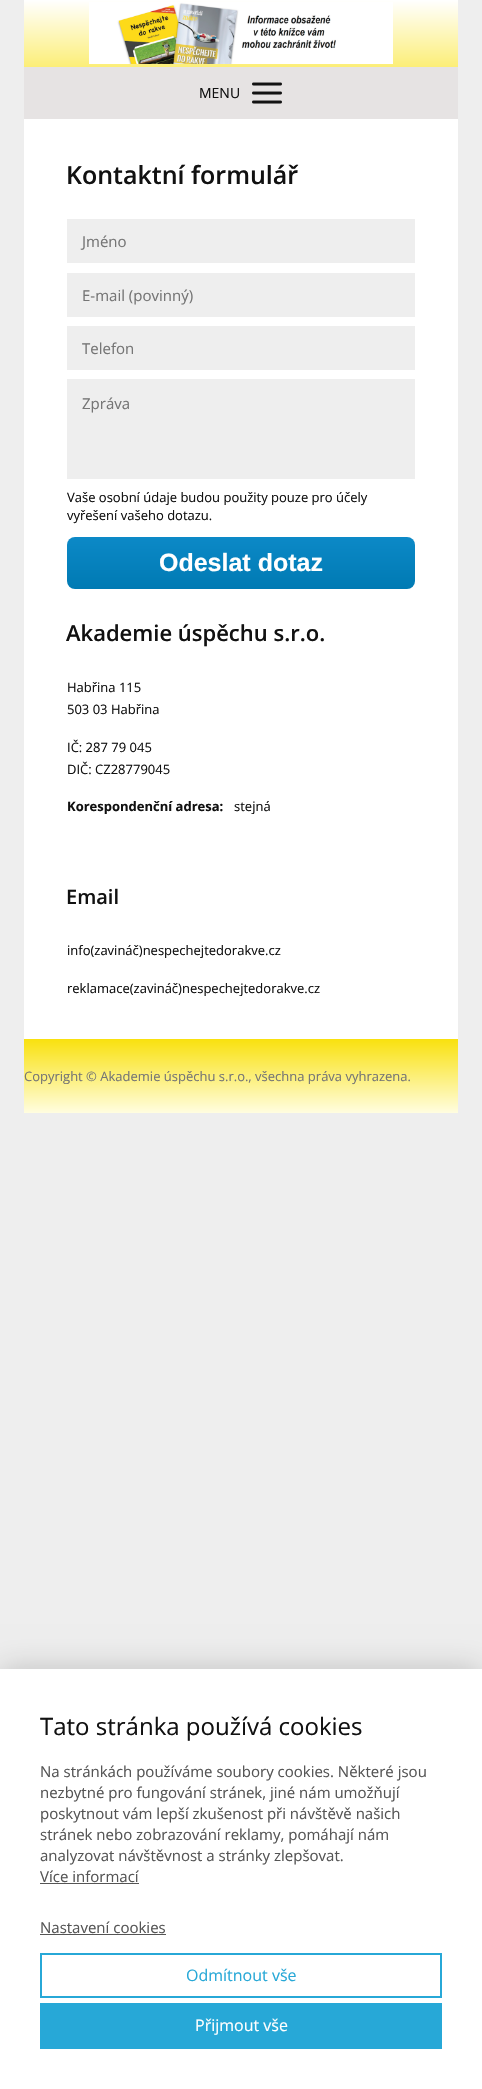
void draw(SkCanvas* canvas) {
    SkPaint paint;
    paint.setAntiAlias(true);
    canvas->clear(0xFFEEEEEE);
    {
        const SkColor colors[] = {0xFFFFFFFF, 0xFFF9E10E};
        const float stops[] = {0, 1};
        const SkPoint ends[] = {{241, 0}, {241, 119}};
        paint.setShader(SkGradientShader::MakeLinear(ends, colors, stops, 2, SkTileMode::kClamp));
        paint.setAlpha(255);
    }
    canvas->drawRect(SkRect::MakeXYWH(24, 0, 434, 67), paint);
    canvas->drawImageRect(SkImages::DeferredFromEncodedData(SkData::MakeFromFileName("img1.png")), SkRect::MakeXYWH(89, 2, 304, 62), SkSamplingOptions());
    paint.setShader(nullptr);
    paint.setColor(0xFFE6E3E3);
    canvas->drawRect(SkRect::MakeXYWH(24, 67, 434, 52), paint);
    SkFont font1(fontMgr->matchFamilyStyle("Open Sans", SkFontStyle::Normal()), 14);
    font1.setSubpixel(true);
    paint.setColor(0xFF111111);
    canvas->drawString("MENU", 199, 98, font1, paint);
    canvas->drawImageRect(SkImages::DeferredFromEncodedData(SkData::MakeFromFileName("img2.png")), SkRect::MakeXYWH(252, 82, 30, 22), SkSamplingOptions());
    paint.setColor(0xFFFFFFFF);
    canvas->drawRect(SkRect::MakeXYWH(24, 119, 434, 920), paint);
    SkFont font2(fontMgr->matchFamilyStyle("Open Sans", SkFontStyle(600, SkFontStyle::kNormal_Width, SkFontStyle::kUpright_Slant)), 25);
    font2.setSubpixel(true);
    paint.setColor(0xFF111111);
    canvas->drawString("Kontaktní formulář", 66, 184, font2, paint);
    paint.setColor(0xFFEEEEEE);
    canvas->drawRect(SkRect::MakeXYWH(67, 219, 348, 44), paint);
    SkFont font3(fontMgr->matchFamilyStyle("Open Sans", SkFontStyle::Normal()), 15);
    font3.setSubpixel(true);
    paint.setColor(0xFF757575);
    canvas->drawString("Jméno", 82, 247, font3, paint);
    paint.setColor(0xFFEEEEEE);
    canvas->drawRect(SkRect::MakeXYWH(67, 273, 348, 44), paint);
    paint.setColor(0xFF757575);
    canvas->drawString("E-mail (povinný)", 82, 301, font3, paint);
    paint.setColor(0xFFEEEEEE);
    canvas->drawRect(SkRect::MakeXYWH(67, 326, 348, 44), paint);
    paint.setColor(0xFF757575);
    canvas->drawString("Telefon", 82, 354, font3, paint);
    paint.setColor(0xFFEEEEEE);
    canvas->drawRect(SkRect::MakeXYWH(67, 379, 348, 100), paint);
    paint.setColor(0xFF757575);
    canvas->drawString("Zpráva", 82, 409, font3, paint);
    SkFont font4(fontMgr->matchFamilyStyle("Open Sans", SkFontStyle::Normal()), 13);
    font4.setSubpixel(true);
    paint.setColor(0xFF111111);
    canvas->drawString("Vaše osobní údaje budou použity pouze pro účely", 67, 502, font4, paint);
    canvas->drawString("vyřešení vašeho dotazu.", 67, 520, font4, paint);
    {
        const SkColor colors[] = {0xFF0C89C7, 0xFF007AB3};
        const float stops[] = {0, 1};
        const SkPoint ends[] = {{241, 537}, {241, 589}};
        paint.setShader(SkGradientShader::MakeLinear(ends, colors, stops, 2, SkTileMode::kClamp));
        paint.setAlpha(255);
    }
    canvas->drawRoundRect(SkRect::MakeXYWH(67, 537, 348, 52), 8, 8, paint);
    SkFont font5(fontMgr->matchFamilyStyle("Liberation Sans", SkFontStyle::Bold()), 25);
    font5.setSubpixel(true);
    paint.setShader(nullptr);
    paint.setColor(0xFFFFFFFF);
    canvas->drawString("Odeslat dotaz", 159, 571, font5, paint);
    SkFont font6(fontMgr->matchFamilyStyle("Open Sans", SkFontStyle(600, SkFontStyle::kNormal_Width, SkFontStyle::kUpright_Slant)), 22);
    font6.setSubpixel(true);
    paint.setColor(0xFF111111);
    canvas->drawString("Akademie úspěchu s.r.o.", 66, 641, font6, paint);
    canvas->drawString("Habřina 115", 67, 692, font4, paint);
    canvas->drawString("503 03 Habřina", 67, 714, font4, paint);
    canvas->drawString("IČ: 287 79 045", 67, 752, font4, paint);
    canvas->drawString("DIČ: CZ28779045", 67, 774, font4, paint);
    SkFont font7(fontMgr->matchFamilyStyle("Open Sans", SkFontStyle::Bold()), 13);
    font7.setSubpixel(true);
    canvas->drawString("Korespondenční adresa:", 67, 811, font7, paint);
    canvas->drawString("stejná", 234, 811, font4, paint);
    SkFont font8(fontMgr->matchFamilyStyle("Open Sans", SkFontStyle(600, SkFontStyle::kNormal_Width, SkFontStyle::kUpright_Slant)), 20);
    font8.setSubpixel(true);
    canvas->drawString("Email", 66, 904, font8, paint);
    canvas->drawString("info(zavináč)nespechejtedorakve.cz", 67, 955, font4, paint);
    canvas->drawString("reklamace(zavináč)nespechejtedorakve.cz", 67, 993, font4, paint);
    {
        const SkColor colors[] = {0xFFF9E10E, 0xFFFFFDE0};
        const float stops[] = {0, 1};
        const SkPoint ends[] = {{241, 1039}, {241, 1113}};
        paint.setShader(SkGradientShader::MakeLinear(ends, colors, stops, 2, SkTileMode::kClamp));
        paint.setAlpha(255);
    }
    canvas->drawRect(SkRect::MakeXYWH(24, 1039, 434, 74), paint);
    paint.setShader(nullptr);
    paint.setColor(0xFF757575);
    canvas->drawString("Copyright © Akademie úspěchu s.r.o., všechna práva vyhrazena.", 24, 1081, font4, paint);
    paint.setColor(0x33000000);
    paint.setMaskFilter(SkMaskFilter::MakeBlur(kNormal_SkBlurStyle, 15));
    canvas->drawRect(SkRect::MakeXYWH(0, 1669, 482, 420), paint);
    paint.setMaskFilter(nullptr);
    paint.setColor(0xFFFFFFFF);
    canvas->drawRect(SkRect::MakeXYWH(0, 1669, 482, 420), paint);
    SkFont font9(fontMgr->matchFamilyStyle("Open Sans", SkFontStyle::Normal()), 24);
    font9.setSubpixel(true);
    paint.setColor(0xFF111111);
    canvas->drawString("Tato stránka používá cookies", 40, 1735, font9, paint);
    paint.setColor(0xFF555555);
    canvas->drawString("Na stránkách používáme soubory cookies. Některé jsou", 40, 1777, font3, paint);
    canvas->drawString("nezbytné pro fungování stránek, jiné nám umožňují", 40, 1798, font3, paint);
    canvas->drawString("poskytnout vám lepší zkušenost při návštěvě našich", 40, 1819, font3, paint);
    canvas->drawString("stránek nebo zobrazování reklamy, pomáhají nám", 40, 1840, font3, paint);
    canvas->drawString("analyzovat návštěvnost a stránky zlepšovat.", 40, 1861, font3, paint);
    canvas->drawString("Více informací", 40, 1882, font3, paint);
    canvas->drawRect(SkRect::MakeXYWH(40, 1883, 99, 1), paint);
    canvas->drawString("Nastavení cookies", 40, 1933, font3, paint);
    canvas->drawRect(SkRect::MakeXYWH(40, 1934, 126, 1), paint);
    paint.setStyle(SkPaint::kStroke_Style);
    paint.setStrokeWidth(2);
    paint.setColor(0xFF27A8D7);
    canvas->drawRect(SkRect::MakeXYWH(41, 1954, 400, 43), paint);
    SkFont font10(fontMgr->matchFamilyStyle("Open Sans", SkFontStyle::Normal()), 16);
    font10.setSubpixel(true);
    paint.setStyle(SkPaint::kFill_Style);
    canvas->drawString("Odmítnout vše", 186, 1981, font10, paint);
    canvas->drawRect(SkRect::MakeXYWH(40, 2003, 402, 46), paint);
    paint.setColor(0xFFFFFFFF);
    canvas->drawString("Přijmout vše", 195, 2031, font10, paint);
}
